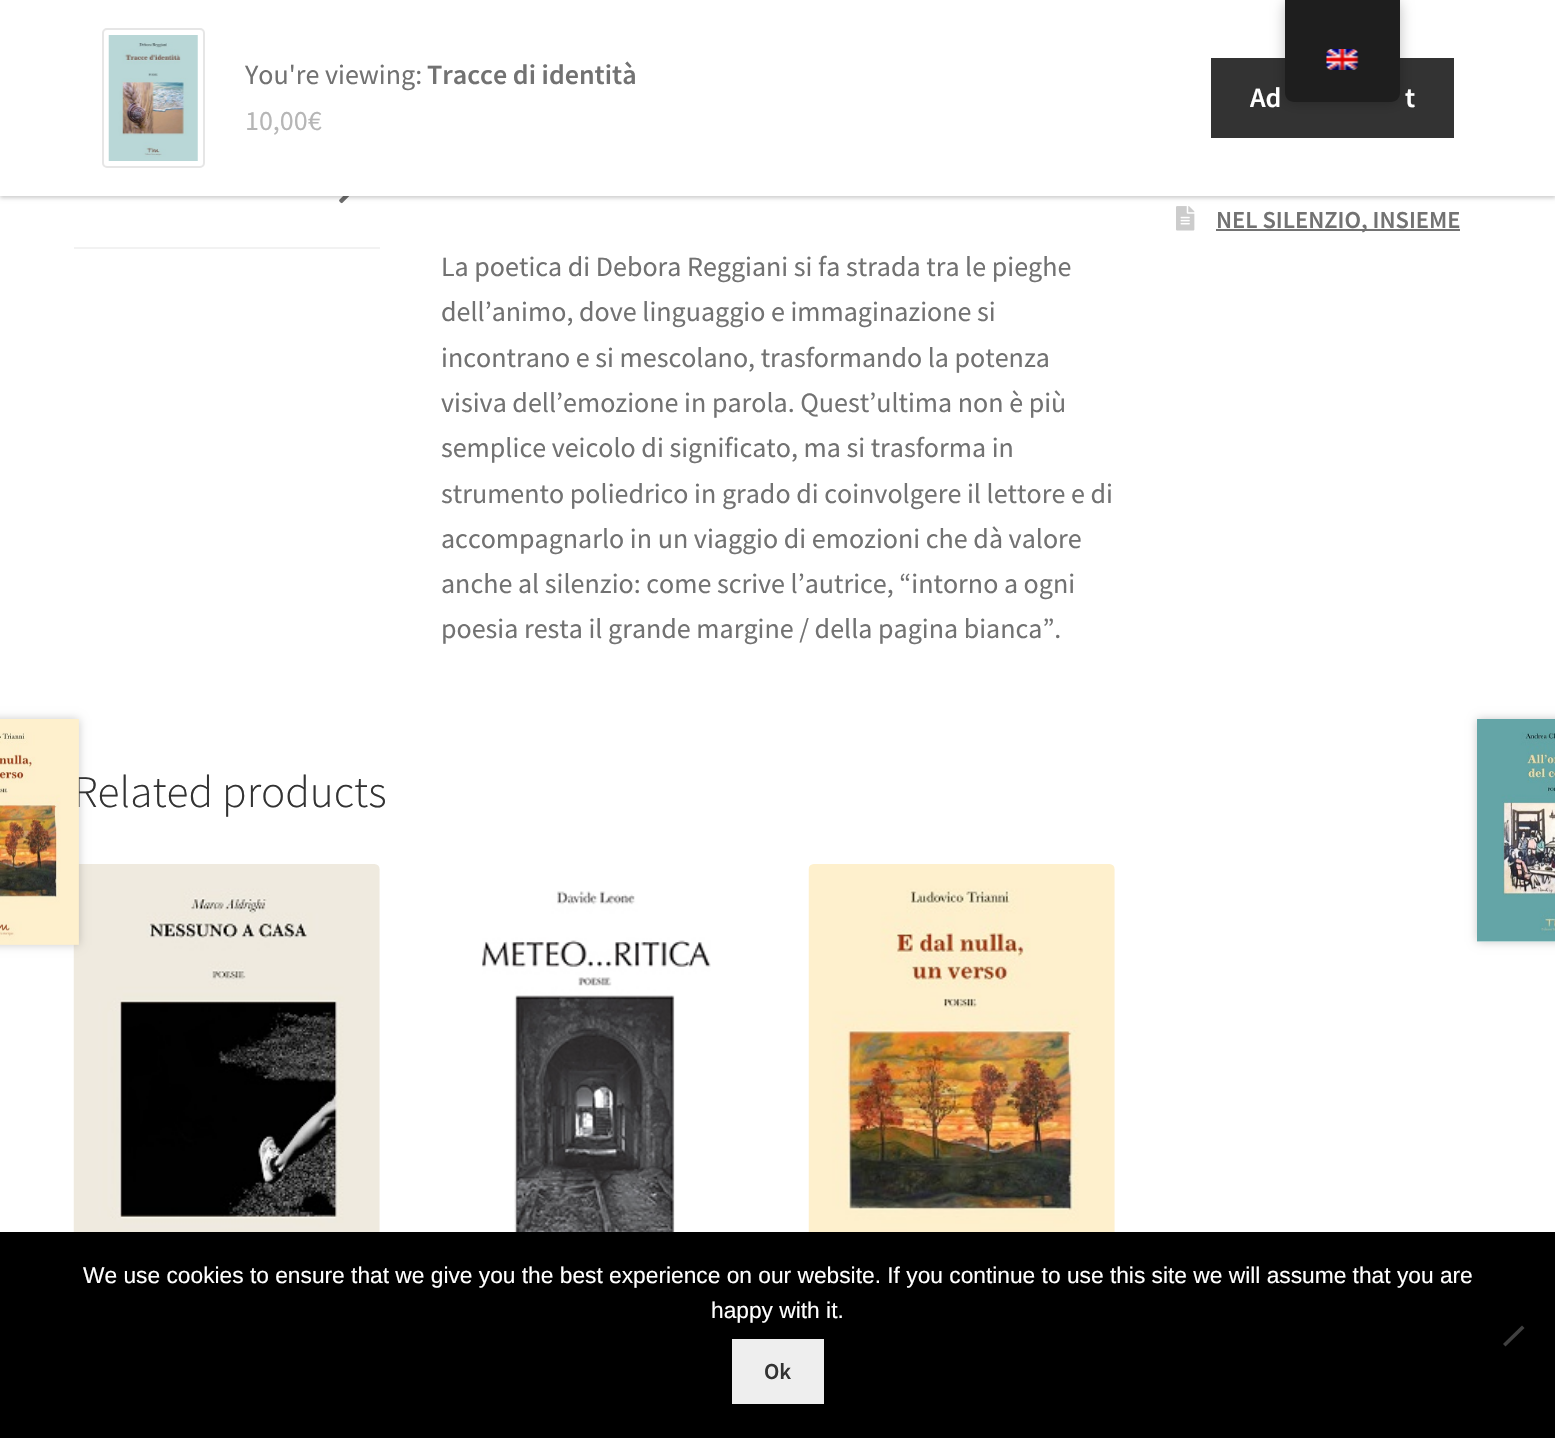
void draw(SkCanvas* canvas) {
    SkPaint paint;
    paint.setAntiAlias(true);
    canvas->clear(0xFFFFFFFF);
    canvas->drawImageRect(SkImages::DeferredFromEncodedData(SkData::MakeFromFileName("img4.png")), SkRect::MakeXYWH(339, 196, 11, 8), SkSamplingOptions());
    paint.setColor(0x33000000);
    paint.setMaskFilter(SkMaskFilter::MakeBlur(kNormal_SkBlurStyle, 2));
    canvas->drawRect(SkRect::MakeXYWH(0, 2, 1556, 196), paint);
    paint.setMaskFilter(nullptr);
    paint.setColor(0xFFFFFFFF);
    canvas->drawRect(SkRect::MakeXYWH(0, 0, 1555, 196), paint);
    paint.setColor(0xFF333333);
    canvas->drawRect(SkRect::MakeXYWH(1211, 58, 243, 80), paint);
    paint.setColor(0x40000000);
    paint.setMaskFilter(SkMaskFilter::MakeBlur(kNormal_SkBlurStyle, 7));
    canvas->drawRoundRect(SkRect::MakeXYWH(1285, 0, 115, 102), 9, 9, paint);
    paint.setMaskFilter(nullptr);
    paint.setColor(0xFF1E1E1E);
    canvas->drawPath(SkPathBuilder().moveTo(1285, 0).lineTo(1400, 0).lineTo(1400, 93).cubicTo(1400, 98, 1396, 102, 1391, 102).lineTo(1294, 102).cubicTo(1289, 102, 1285, 98, 1285, 93).close().detach(), paint);
    canvas->drawImageRect(SkImages::DeferredFromEncodedData(SkData::MakeFromFileName("img1.png")), SkRect::MakeXYWH(1326, 49, 33, 21), SkSamplingOptions());
    paint.setStyle(SkPaint::kStroke_Style);
    paint.setStrokeWidth(2);
    paint.setColor(0xFFE6E6E6);
    canvas->drawRoundRect(SkRect::MakeXYWH(103, 29, 101, 138), 4, 4, paint);
    canvas->drawImageRect(SkImages::DeferredFromEncodedData(SkData::MakeFromFileName("img2.png")), SkRect::MakeXYWH(108, 35, 90, 126), SkSamplingOptions());
    SkFont font1(fontMgr->matchFamilyStyle("Source Sans Pro", SkFontStyle::Normal()), 28);
    font1.setSubpixel(true);
    paint.setStyle(SkPaint::kFill_Style);
    paint.setColor(0xFF727272);
    canvas->drawString("You're viewing:", 245, 84, font1, paint);
    SkFont font2(fontMgr->matchFamilyStyle("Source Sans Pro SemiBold", SkFontStyle(600, SkFontStyle::kNormal_Width, SkFontStyle::kUpright_Slant)), 28);
    font2.setSubpixel(true);
    canvas->drawString("Tracce di identità", 427, 84, font2, paint);
    paint.setColor(0xFFB6B6B6);
    canvas->drawString("10,00€", 245, 130, font1, paint);
    paint.setColor(0xFFFFFFFF);
    canvas->drawString("Ad", 1250, 107, font2, paint);
    canvas->drawString("t", 1405, 107, font2, paint);
    canvas->drawImageRect(SkImages::DeferredFromEncodedData(SkData::MakeFromFileName("img3.png")), SkRect::MakeXYWH(1176, 206, 19, 25), SkSamplingOptions());
    paint.setColor(0xFF727272);
    canvas->drawRect(SkRect::MakeXYWH(1216, 229, 244, 2), paint);
    SkFont font3(fontMgr->matchFamilyStyle("Source Sans Pro SemiBold", SkFontStyle(600, SkFontStyle::kNormal_Width, SkFontStyle::kUpright_Slant)), 24.5f);
    font3.setSubpixel(true);
    canvas->drawString("NEL SILENZIO, INSIEME", 1216, 228, font3, paint);
    paint.setColor(0xFFF2F2F2);
    canvas->drawRect(SkRect::MakeXYWH(74, 247, 306, 2), paint);
    paint.setColor(0xFF727272);
    canvas->drawString("La poetica di Debora Reggiani si fa strada tra le pieghe", 441, 276, font1, paint);
    canvas->drawString("dell’animo, dove linguaggio e immaginazione si", 441, 321, font1, paint);
    canvas->drawString("incontrano e si mescolano, trasformando la potenza", 441, 367, font1, paint);
    canvas->drawString("visiva dell’emozione in parola. Quest’ultima non è più", 441, 412, font1, paint);
    canvas->drawString("semplice veicolo di significato, ma si trasforma in", 441, 457, font1, paint);
    canvas->drawString("strumento poliedrico in grado di coinvolgere il lettore e di", 441, 503, font1, paint);
    canvas->drawString("accompagnarlo in un viaggio di emozioni che dà valore", 441, 548, font1, paint);
    canvas->drawString("anche al silenzio: come scrive l’autrice, “intorno a ogni", 441, 593, font1, paint);
    canvas->drawString("poesia resta il grande margine / della pagina bianca”.", 441, 638, font1, paint);
    canvas->drawImageRect(SkImages::DeferredFromEncodedData(SkData::MakeFromFileName("img7.png")), SkRect::MakeXYWH(73, 864, 307, 368), SkSamplingOptions());
    paint.setColor(0x33000000);
    paint.setMaskFilter(SkMaskFilter::MakeBlur(kNormal_SkBlurStyle, 4.5f));
    canvas->drawRect(SkRect::MakeXYWH(-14, 719, 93, 226), paint);
    paint.setMaskFilter(nullptr);
    SkFont font4(fontMgr->matchFamilyStyle("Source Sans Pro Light", SkFontStyle(300, SkFontStyle::kNormal_Width, SkFontStyle::kUpright_Slant)), 45.25f);
    font4.setSubpixel(true);
    paint.setColor(0xFF333333);
    canvas->drawString("Related products", 73, 807, font4, paint);
    canvas->drawImageRect(SkImages::DeferredFromEncodedData(SkData::MakeFromFileName("img5.png")), SkRect::MakeXYWH(0, 719, 79, 226), SkSamplingOptions());
    paint.setColor(0x33000000);
    paint.setMaskFilter(SkMaskFilter::MakeBlur(kNormal_SkBlurStyle, 4.5f));
    canvas->drawRect(SkRect::MakeXYWH(1477, 719, 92, 223), paint);
    paint.setMaskFilter(nullptr);
    paint.setColor(0xFFFFFFFF);
    canvas->drawRect(SkRect::MakeXYWH(1477, 941, 78, 1), paint);
    canvas->drawImageRect(SkImages::DeferredFromEncodedData(SkData::MakeFromFileName("img6.png")), SkRect::MakeXYWH(1477, 719, 78, 223), SkSamplingOptions());
    canvas->drawImageRect(SkImages::DeferredFromEncodedData(SkData::MakeFromFileName("img8.png")), SkRect::MakeXYWH(482, 891, 229, 341), SkSamplingOptions());
    canvas->drawImageRect(SkImages::DeferredFromEncodedData(SkData::MakeFromFileName("img9.png")), SkRect::MakeXYWH(808, 864, 307, 368), SkSamplingOptions());
    paint.setColor(0xFF000000);
    canvas->drawRect(SkRect::MakeXYWH(0, 1232, 1555, 206), paint);
    SkFont font5(fontMgr->matchFamilyStyle("Liberation Sans", SkFontStyle::Normal()), 22.75f);
    font5.setSubpixel(true);
    paint.setColor(0xFFFFFFFF);
    canvas->drawString("We use cookies to ensure that we give you the best experience on our website. If you continue to use this site we will assume that you are", 83, 1283, font5, paint);
    canvas->drawString("happy with it.", 711, 1318, font5, paint);
    paint.setColor(0xFF404040);
    canvas->drawPath(SkPathBuilder().moveTo(1522, 1325.5f).lineTo(1524.5f, 1328).lineTo(1505.5f, 1346.5f).lineTo(1503, 1344).close().detach(), paint);
    paint.setColor(0xFFEEEEEE);
    canvas->drawRect(SkRect::MakeXYWH(732, 1339, 92, 65), paint);
    SkFont font6(fontMgr->matchFamilyStyle("Source Sans Pro SemiBold", SkFontStyle(600, SkFontStyle::kNormal_Width, SkFontStyle::kUpright_Slant)), 22.75f);
    font6.setSubpixel(true);
    paint.setColor(0xFF333333);
    canvas->drawString("Ok", 764, 1379, font6, paint);
}
